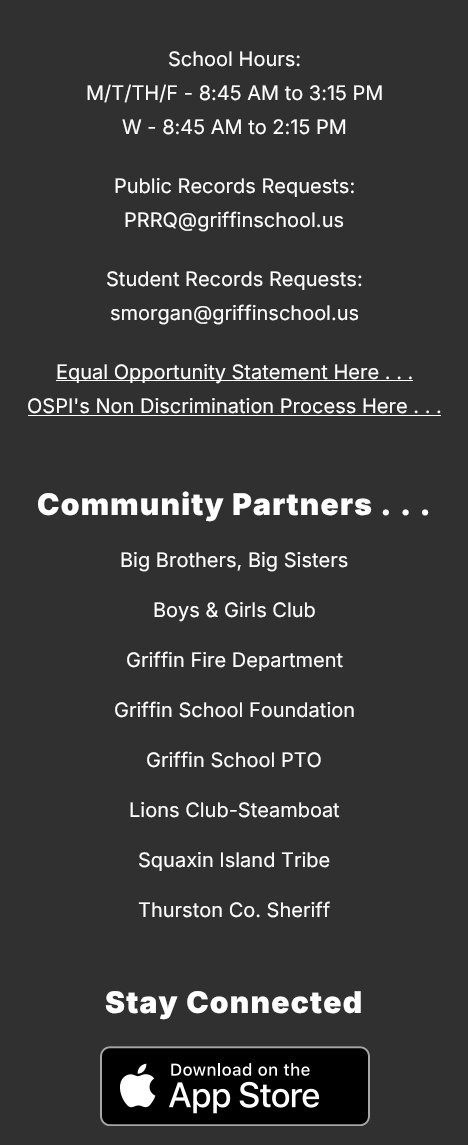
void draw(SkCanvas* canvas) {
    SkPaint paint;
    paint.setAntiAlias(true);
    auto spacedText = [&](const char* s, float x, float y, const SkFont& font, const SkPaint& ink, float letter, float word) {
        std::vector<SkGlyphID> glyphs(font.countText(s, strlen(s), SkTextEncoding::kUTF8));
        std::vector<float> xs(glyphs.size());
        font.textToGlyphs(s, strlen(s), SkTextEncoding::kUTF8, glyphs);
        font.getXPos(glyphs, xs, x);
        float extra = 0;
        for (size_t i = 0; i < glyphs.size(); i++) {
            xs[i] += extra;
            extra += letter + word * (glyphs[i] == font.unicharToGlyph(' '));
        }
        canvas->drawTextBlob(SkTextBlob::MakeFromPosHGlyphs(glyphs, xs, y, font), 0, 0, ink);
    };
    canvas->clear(0xFF303030);
    SkFont font1(fontMgr->matchFamilyStyle("Inter", SkFontStyle::Normal()), 20);
    font1.setSubpixel(true);
    paint.setColor(0xFFFFFFFF);
    canvas->drawString("School Hours:", 168, 66, font1, paint);
    canvas->drawString("M/T/TH/F - 8:45 AM to 3:15 PM", 86, 100, font1, paint);
    canvas->drawString("W - 8:45 AM to 2:15 PM", 122, 134, font1, paint);
    canvas->drawString("Public Records Requests:", 114, 193, font1, paint);
    canvas->drawString("PRRQ@griffinschool.us", 124, 227, font1, paint);
    canvas->drawString("Student Records Requests:", 106, 286, font1, paint);
    canvas->drawString("smorgan@griffinschool.us", 110, 320, font1, paint);
    canvas->drawRect(SkRect::MakeXYWH(56, 380, 357, 1), paint);
    canvas->drawString("Equal Opportunity Statement Here . . .", 56, 379, font1, paint);
    canvas->drawString("OSPI's Non Discrimination Process Here . . .", 27, 413, font1, paint);
    canvas->drawRect(SkRect::MakeXYWH(28, 415, 413, 1), paint);
    SkFont font2(fontMgr->matchFamilyStyle("Inter", SkFontStyle(900, SkFontStyle::kNormal_Width, SkFontStyle::kUpright_Slant)), 30);
    font2.setSubpixel(true);
    spacedText("Community Partners . . .", 37, 515, font2, paint, 1.25f, 0);
    canvas->drawString("Big Brothers, Big Sisters", 120, 567, font1, paint);
    canvas->drawString("Boys & Girls Club", 153, 617, font1, paint);
    canvas->drawString("Griffin Fire Department", 126, 667, font1, paint);
    canvas->drawString("Griffin School Foundation", 114, 717, font1, paint);
    canvas->drawString("Griffin School PTO", 146, 767, font1, paint);
    canvas->drawString("Lions Club-Steamboat", 129, 817, font1, paint);
    canvas->drawString("Squaxin Island Tribe", 138, 867, font1, paint);
    canvas->drawString("Thurston Co. Sheriff", 138, 917, font1, paint);
    spacedText("Stay Connected", 105, 1013, font2, paint, 1.25f, 0);
    canvas->drawImageRect(SkImages::DeferredFromEncodedData(SkData::MakeFromFileName("img1.png")), SkRect::MakeXYWH(100, 1046, 270, 80), SkSamplingOptions());
}
